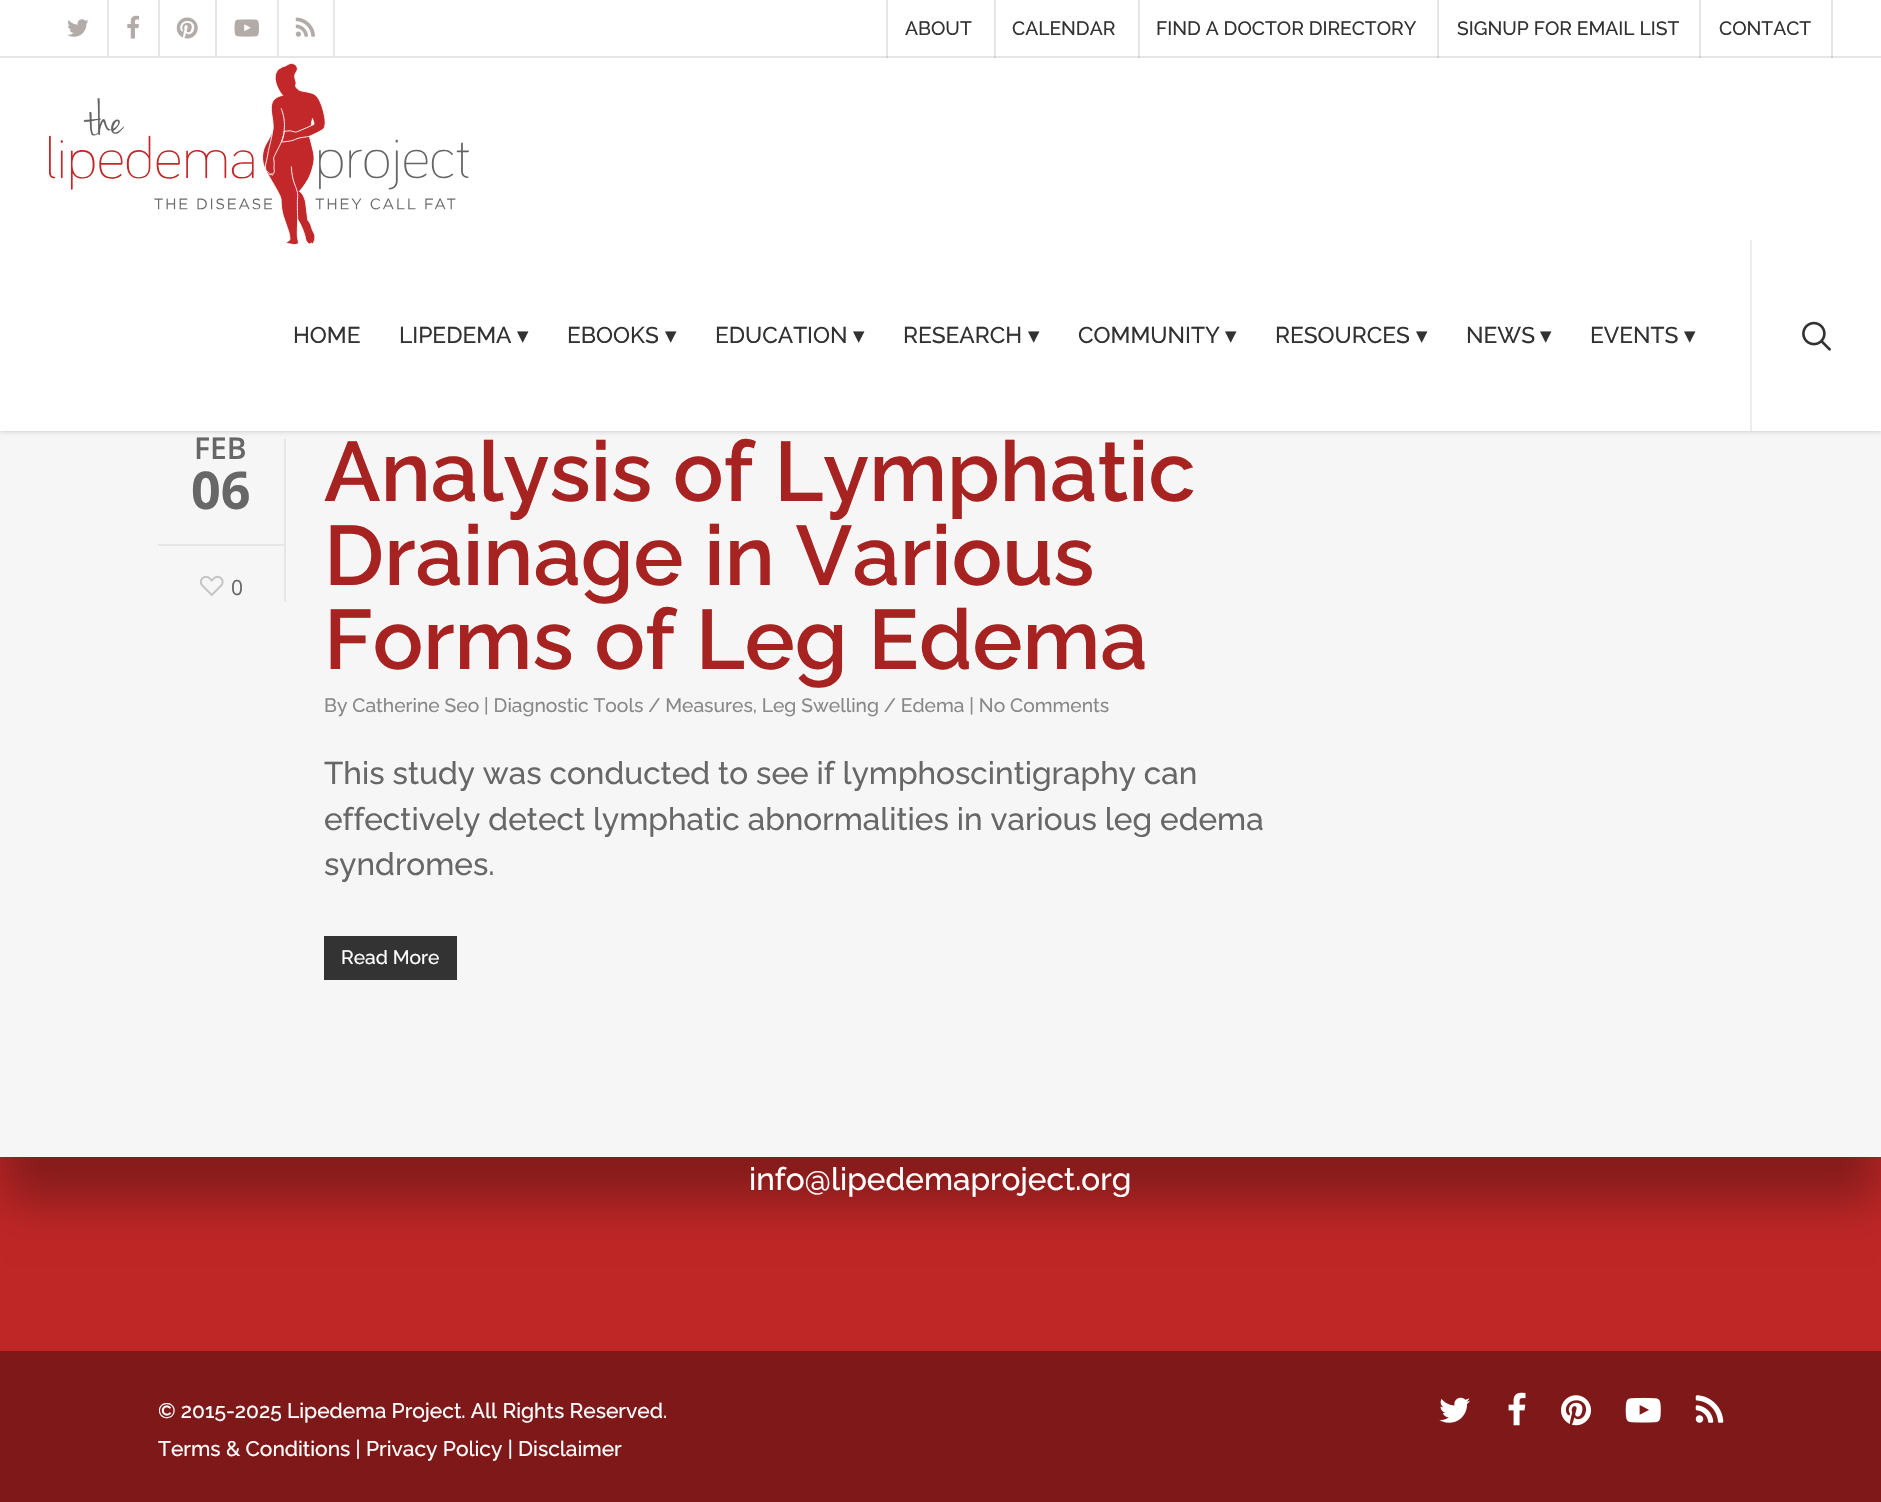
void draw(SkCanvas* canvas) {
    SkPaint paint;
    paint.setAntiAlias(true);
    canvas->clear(0xFFBF2626);
    paint.setColor(0x4D000000);
    paint.setMaskFilter(SkMaskFilter::MakeBlur(kNormal_SkBlurStyle, 22));
    canvas->drawRect(SkRect::MakeXYWH(4, 271, 1874, 930), paint);
    paint.setMaskFilter(nullptr);
    paint.setColor(0xFFF6F6F6);
    canvas->drawRect(SkRect::MakeXYWH(0, 431, 1881, 726), paint);
    paint.setColor(0xFFE6E6E6);
    canvas->drawRect(SkRect::MakeXYWH(284, 439, 2, 163), paint);
    paint.setColor(0x38000000);
    paint.setMaskFilter(SkMaskFilter::MakeBlur(kNormal_SkBlurStyle, 2.5f));
    canvas->drawRect(SkRect::MakeXYWH(0, 58, 1881, 373), paint);
    paint.setMaskFilter(nullptr);
    paint.setColor(0xFFFFFFFF);
    canvas->drawRect(SkRect::MakeXYWH(0, 0, 1881, 56), paint);
    paint.setColor(0xFFE6E6E6);
    canvas->drawRect(SkRect::MakeXYWH(0, 56, 1881, 2), paint);
    canvas->drawImageRect(SkImages::DeferredFromEncodedData(SkData::MakeFromFileName("img1.png")), SkRect::MakeXYWH(67, 19, 22, 18), SkSamplingOptions());
    canvas->drawRect(SkRect::MakeXYWH(107, 0, 2, 56), paint);
    canvas->drawImageRect(SkImages::DeferredFromEncodedData(SkData::MakeFromFileName("img2.png")), SkRect::MakeXYWH(127, 15, 13, 24), SkSamplingOptions());
    canvas->drawRect(SkRect::MakeXYWH(158, 0, 2, 56), paint);
    canvas->drawImageRect(SkImages::DeferredFromEncodedData(SkData::MakeFromFileName("img3.png")), SkRect::MakeXYWH(176, 17, 22, 22), SkSamplingOptions());
    canvas->drawRect(SkRect::MakeXYWH(215, 0, 2, 56), paint);
    canvas->drawImageRect(SkImages::DeferredFromEncodedData(SkData::MakeFromFileName("img4.png")), SkRect::MakeXYWH(234, 19, 25, 18), SkSamplingOptions());
    canvas->drawRect(SkRect::MakeXYWH(333, 0, 2, 56), paint);
    canvas->drawRect(SkRect::MakeXYWH(277, 0, 2, 56), paint);
    canvas->drawImageRect(SkImages::DeferredFromEncodedData(SkData::MakeFromFileName("img5.png")), SkRect::MakeXYWH(295, 17, 20, 20), SkSamplingOptions());
    paint.setColor(0x1A000000);
    canvas->drawRect(SkRect::MakeXYWH(886, 0, 2, 58), paint);
    SkFont font1(fontMgr->matchFamilyStyle("Raleway", SkFontStyle(500, SkFontStyle::kNormal_Width, SkFontStyle::kUpright_Slant)), 19.25f);
    font1.setSubpixel(true);
    paint.setColor(0xFF313233);
    canvas->drawString("ABOUT", 905, 35, font1, paint);
    paint.setColor(0x1A000000);
    canvas->drawRect(SkRect::MakeXYWH(994, 0, 2, 58), paint);
    paint.setColor(0xFF313233);
    canvas->drawString("CALENDAR", 1012, 35, font1, paint);
    paint.setColor(0x1A000000);
    canvas->drawRect(SkRect::MakeXYWH(1138, 0, 2, 58), paint);
    paint.setColor(0xFF313233);
    canvas->drawString("FIND A DOCTOR DIRECTORY", 1156, 35, font1, paint);
    paint.setColor(0x1A000000);
    canvas->drawRect(SkRect::MakeXYWH(1437, 0, 2, 58), paint);
    paint.setColor(0xFF313233);
    canvas->drawString("SIGNUP FOR EMAIL LIST", 1457, 35, font1, paint);
    paint.setColor(0x1A000000);
    canvas->drawRect(SkRect::MakeXYWH(1831, 0, 2, 58), paint);
    canvas->drawRect(SkRect::MakeXYWH(1699, 0, 2, 58), paint);
    paint.setColor(0xFF313233);
    canvas->drawString("CONTACT", 1719, 35, font1, paint);
    paint.setColor(0xFFFFFFFF);
    canvas->drawRect(SkRect::MakeXYWH(0, 58, 1881, 373), paint);
    canvas->drawImageRect(SkImages::DeferredFromEncodedData(SkData::MakeFromFileName("img6.png")), SkRect::MakeXYWH(49, 63, 420, 182), SkSamplingOptions());
    SkFont font2(fontMgr->matchFamilyStyle("Raleway", SkFontStyle(500, SkFontStyle::kNormal_Width, SkFontStyle::kUpright_Slant)), 22.75f);
    font2.setSubpixel(true);
    paint.setColor(0xFF313233);
    canvas->drawString("HOME", 293, 343, font2, paint);
    canvas->drawString("LIPEDEMA", 399, 343, font2, paint);
    SkFont font3(fontMgr->matchFamilyStyle("DejaVu Sans", SkFontStyle::Normal()), 22.75f);
    font3.setSubpixel(true);
    canvas->drawString("▾", 517, 343, font3, paint);
    canvas->drawString("EBOOKS", 567, 343, font2, paint);
    canvas->drawString("▾", 665, 343, font3, paint);
    canvas->drawString("EDUCATION", 715, 343, font2, paint);
    canvas->drawString("▾", 853, 343, font3, paint);
    canvas->drawString("RESEARCH", 903, 343, font2, paint);
    canvas->drawString("▾", 1028, 343, font3, paint);
    canvas->drawString("COMMUNITY", 1078, 343, font2, paint);
    canvas->drawString("▾", 1225, 343, font3, paint);
    canvas->drawString("RESOURCES", 1275, 343, font2, paint);
    canvas->drawString("▾", 1416, 343, font3, paint);
    canvas->drawString("NEWS", 1466, 343, font2, paint);
    canvas->drawString("▾", 1540, 343, font3, paint);
    canvas->drawString("EVENTS", 1590, 343, font2, paint);
    canvas->drawString("▾", 1684, 343, font3, paint);
    paint.setColor(0xFFEDEDED);
    canvas->drawRect(SkRect::MakeXYWH(1750, 240, 2, 191), paint);
    canvas->drawImageRect(SkImages::DeferredFromEncodedData(SkData::MakeFromFileName("img7.png")), SkRect::MakeXYWH(1802, 321, 29, 30), SkSamplingOptions());
    paint.setColor(0xFFE6E6E6);
    canvas->drawRect(SkRect::MakeXYWH(158, 544, 126, 2), paint);
    SkFont font4(fontMgr->matchFamilyStyle("Open Sans", SkFontStyle(600, SkFontStyle::kNormal_Width, SkFontStyle::kUpright_Slant)), 30);
    font4.setSubpixel(true);
    paint.setColor(0xFF676767);
    canvas->drawString("FEB", 194, 459, font4, paint);
    SkFont font5(fontMgr->matchFamilyStyle("Open Sans", SkFontStyle::Bold()), 52);
    font5.setSubpixel(true);
    canvas->drawString("06", 191, 509, font5, paint);
    canvas->drawImageRect(SkImages::DeferredFromEncodedData(SkData::MakeFromFileName("img8.png")), SkRect::MakeXYWH(199, 575, 25, 22), SkSamplingOptions());
    SkFont font6(fontMgr->matchFamilyStyle("Open Sans", SkFontStyle::Normal()), 21);
    font6.setSubpixel(true);
    canvas->drawString("0", 231, 595, font6, paint);
    SkFont font7(fontMgr->matchFamilyStyle("Raleway", SkFontStyle(600, SkFontStyle::kNormal_Width, SkFontStyle::kUpright_Slant)), 84);
    font7.setSubpixel(true);
    paint.setColor(0xFFA62321);
    canvas->drawString("Analysis of Lymphatic", 324, 501, font7, paint);
    canvas->drawString("Drainage in Various", 324, 585, font7, paint);
    canvas->drawString("Forms of Leg Edema", 324, 669, font7, paint);
    paint.setColor(0xFF888888);
    canvas->drawString("By Catherine Seo | Diagnostic Tools / Measures, Leg Swelling / Edema | No Comments", 324, 712, font1, paint);
    SkFont font8(fontMgr->matchFamilyStyle("Raleway", SkFontStyle(500, SkFontStyle::kNormal_Width, SkFontStyle::kUpright_Slant)), 31.5f);
    font8.setSubpixel(true);
    paint.setColor(0xFF676767);
    canvas->drawString("This study was conducted to see if lymphoscintigraphy can", 324, 784, font8, paint);
    canvas->drawString("effectively detect lymphatic abnormalities in various leg edema", 324, 830, font8, paint);
    canvas->drawString("syndromes.", 324, 875, font8, paint);
    paint.setColor(0xFF333333);
    canvas->drawRect(SkRect::MakeXYWH(324, 936, 133, 44), paint);
    paint.setColor(0xFFFFFFFF);
    canvas->drawString("Read More", 341, 964, font1, paint);
    canvas->drawString("info@lipedemaproject.org", 749, 1190, font8, paint);
    paint.setColor(0xFF7F1818);
    canvas->drawRect(SkRect::MakeXYWH(0, 1351, 1881, 151), paint);
    SkFont font9(fontMgr->matchFamilyStyle("Raleway", SkFontStyle(500, SkFontStyle::kNormal_Width, SkFontStyle::kUpright_Slant)), 21);
    font9.setSubpixel(true);
    paint.setColor(0xFFFFFFFF);
    canvas->drawString("© 2015-2025 Lipedema Project. All Rights Reserved.", 158, 1418, font9, paint);
    canvas->drawString("Terms & Conditions | Privacy Policy | Disclaimer", 158, 1456, font9, paint);
    canvas->drawImageRect(SkImages::DeferredFromEncodedData(SkData::MakeFromFileName("img9.png")), SkRect::MakeXYWH(1439, 1397, 31, 26), SkSamplingOptions());
    canvas->drawImageRect(SkImages::DeferredFromEncodedData(SkData::MakeFromFileName("img10.png")), SkRect::MakeXYWH(1508, 1392, 18, 34), SkSamplingOptions());
    canvas->drawImageRect(SkImages::DeferredFromEncodedData(SkData::MakeFromFileName("img11.png")), SkRect::MakeXYWH(1561, 1395, 30, 31), SkSamplingOptions());
    canvas->drawImageRect(SkImages::DeferredFromEncodedData(SkData::MakeFromFileName("img12.png")), SkRect::MakeXYWH(1625, 1397, 36, 26), SkSamplingOptions());
    canvas->drawImageRect(SkImages::DeferredFromEncodedData(SkData::MakeFromFileName("img13.png")), SkRect::MakeXYWH(1695, 1395, 29, 28), SkSamplingOptions());
}
